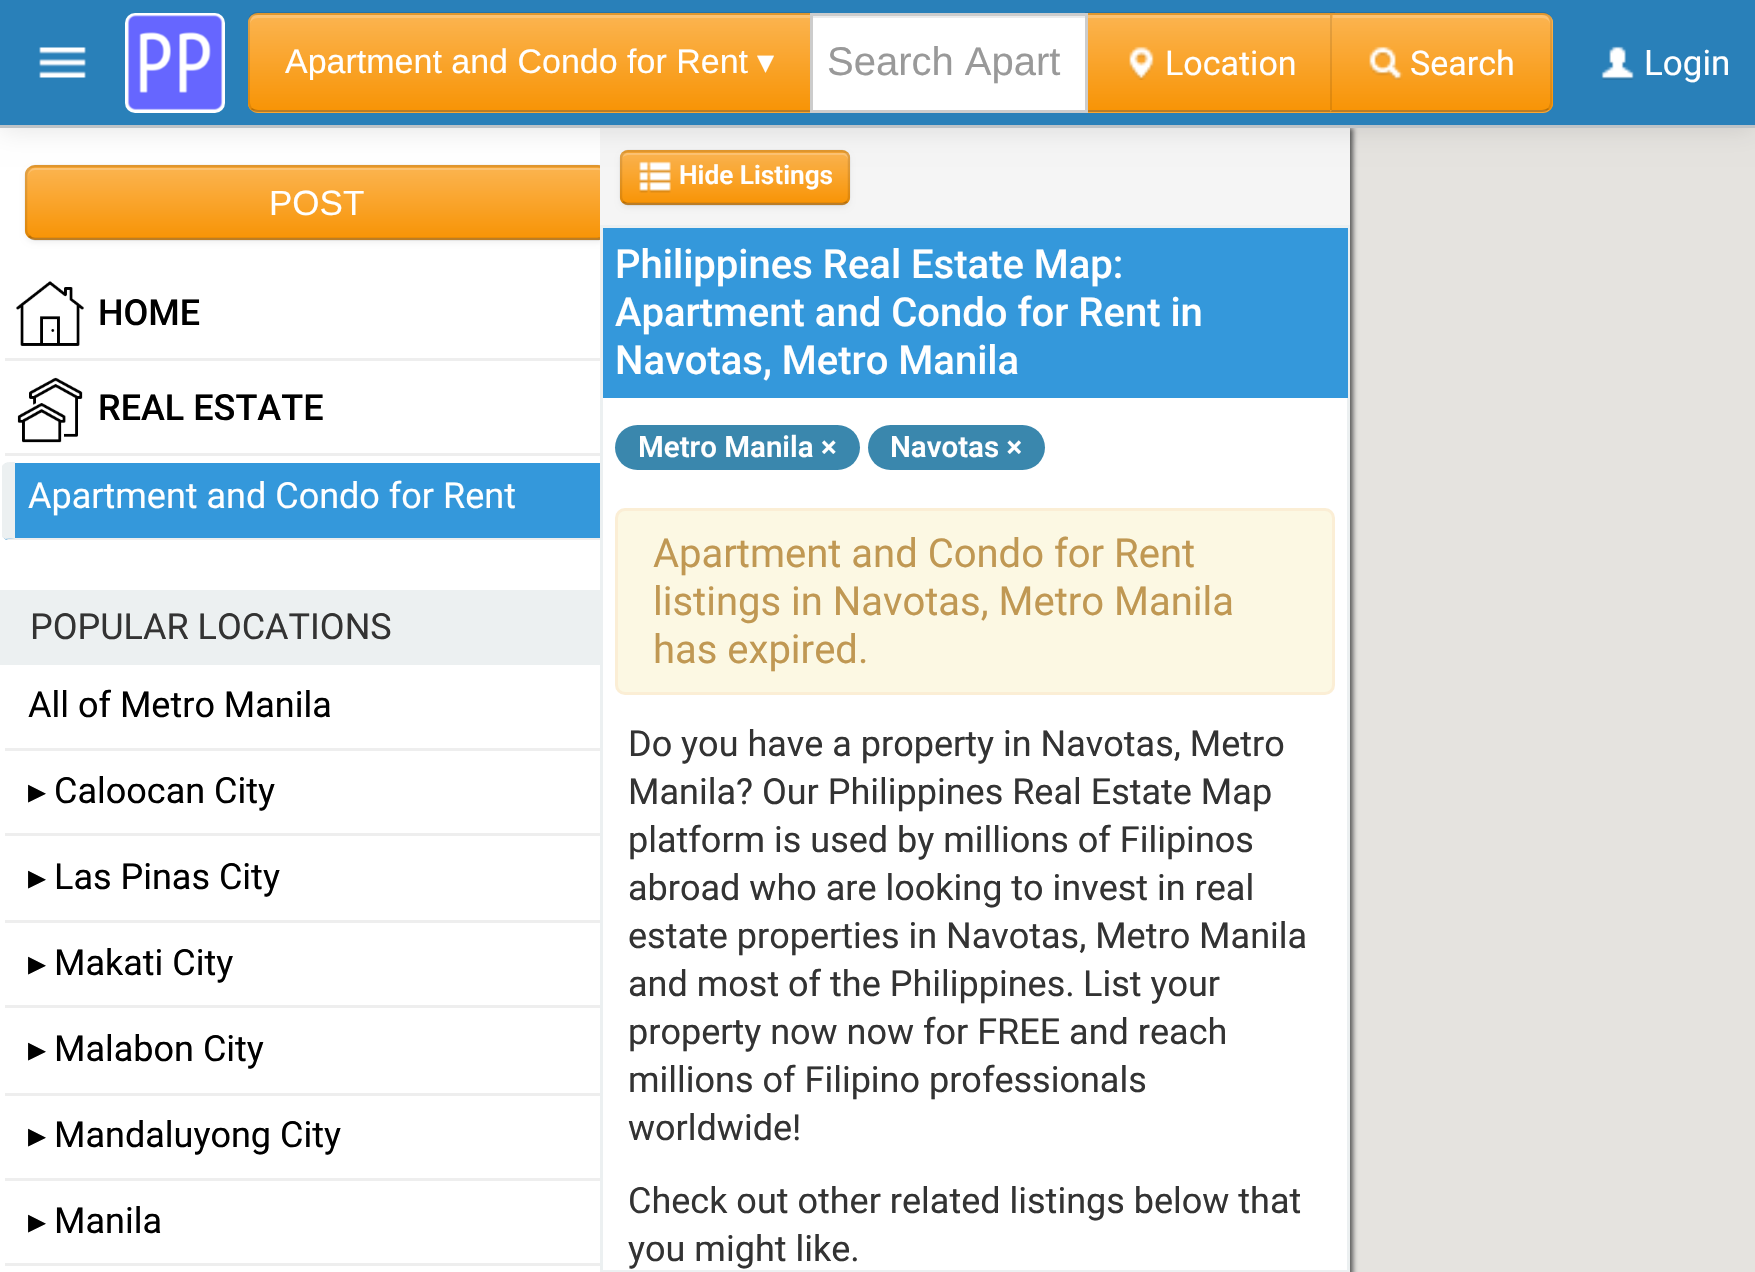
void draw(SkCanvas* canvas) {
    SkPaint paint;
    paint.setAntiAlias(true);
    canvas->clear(0xFFE5E3DF);
    paint.setColor(0xFF575757);
    paint.setMaskFilter(SkMaskFilter::MakeBlur(kNormal_SkBlurStyle, 2.5f));
    canvas->drawRect(SkRect::MakeXYWH(603, 128, 750, 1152), paint);
    paint.setMaskFilter(nullptr);
    paint.setColor(0xFFFFFFFF);
    canvas->drawRect(SkRect::MakeXYWH(0, 128, 600, 1144), paint);
    paint.setColor(0xFFF5F5F5);
    canvas->drawRect(SkRect::MakeXYWH(600, 128, 750, 97), paint);
    paint.setColor(0xFFFFFFFF);
    canvas->drawRect(SkRect::MakeXYWH(603, 398, 744, 872), paint);
    paint.setStyle(SkPaint::kStroke_Style);
    paint.setStrokeWidth(3);
    paint.setColor(0xFFECF0F1);
    canvas->drawRect(SkRect::MakeXYWH(601.5f, 226.5f, 747, 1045), paint);
    paint.setStyle(SkPaint::kFill_Style);
    paint.setColor(0xFF3498DB);
    canvas->drawRect(SkRect::MakeXYWH(603, 228, 745, 170), paint);
    canvas->save();
    canvas->clipRect(SkRect::MakeXYWH(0, 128, 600, 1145));
    paint.setColor(0x0D000000);
    paint.setMaskFilter(SkMaskFilter::MakeBlur(kNormal_SkBlurStyle, 2.5f));
    canvas->drawRoundRect(SkRect::MakeXYWH(25, 168, 583, 75), 10, 10, paint);
    paint.setMaskFilter(nullptr);
    canvas->restore();
    canvas->save();
    canvas->clipRect(SkRect::MakeXYWH(0, 128, 600, 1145));
    paint.setColor(0xFFFAA732);
    canvas->drawRoundRect(SkRect::MakeXYWH(25, 165, 583, 75), 10, 10, paint);
    canvas->restore();
    canvas->save();
    canvas->clipPath(SkPathBuilder().moveTo(35, 165).lineTo(598, 165).cubicTo(603.5f, 165, 608, 169.5f, 608, 175).lineTo(608, 230).cubicTo(608, 235.5f, 603.5f, 240, 598, 240).lineTo(35, 240).cubicTo(29.5f, 240, 25, 235.5f, 25, 230).lineTo(25, 175).cubicTo(25, 169.5f, 29.5f, 165, 35, 165).close().detach(), true);
    {
        const SkColor colors[] = {0xFFFBB450, 0xFFF89406};
        const float stops[] = {0, 1};
        const SkPoint ends[] = {{316, 167}, {316, 238}};
        paint.setShader(SkGradientShader::MakeLinear(ends, colors, stops, 2, SkTileMode::kClamp));
        paint.setAlpha(255);
    }
    canvas->drawRect(SkRect::MakeXYWH(25, 168, 575, 70), paint);
    canvas->restore();
    canvas->save();
    canvas->clipRect(SkRect::MakeXYWH(0, 128, 600, 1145));
    paint.setShader(nullptr);
    paint.setColor(0x33FFFFFF);
    canvas->drawPath(SkPathBuilder().moveTo(35, 170).lineTo(598, 170).cubicTo(602, 170, 605, 173, 605, 178).cubicTo(605, 173, 603, 168, 597, 168).lineTo(36, 168).cubicTo(30, 168, 28, 173, 28, 178).cubicTo(28, 173, 31, 170, 35, 170).close().detach(), paint);
    paint.setStyle(SkPaint::kStroke_Style);
    paint.setStrokeWidth(2.5f);
    paint.setColor(0x40000000);
    canvas->drawPath(SkPathBuilder().moveTo(603.5f, 236).cubicTo(602, 238, 600, 239, 597.5f, 239).lineTo(35, 239).cubicTo(32.5f, 239, 30.5f, 238, 29, 236).detach(), paint);
    paint.setColor(0x1A000000);
    canvas->drawPath(SkPathBuilder().moveTo(29, 236).cubicTo(27, 234.5f, 26, 232.5f, 26, 230).lineTo(26, 175).cubicTo(26, 172.5f, 27, 170.5f, 29, 169).cubicTo(30.5f, 167, 32.5f, 166, 35, 166).lineTo(597.5f, 166).cubicTo(600, 166, 602, 167, 603.5f, 169).cubicTo(605.5f, 170.5f, 606, 172.5f, 606, 175).lineTo(606, 230).cubicTo(606, 232.5f, 605.5f, 234.5f, 603.5f, 236).detach(), paint);
    canvas->restore();
    paint.setStyle(SkPaint::kFill_Style);
    paint.setColor(0x0D000000);
    paint.setMaskFilter(SkMaskFilter::MakeBlur(kNormal_SkBlurStyle, 2.5f));
    canvas->drawRoundRect(SkRect::MakeXYWH(620, 153, 230, 55), 8, 8, paint);
    paint.setMaskFilter(nullptr);
    paint.setColor(0xFFFAA732);
    canvas->drawRoundRect(SkRect::MakeXYWH(620, 150, 230, 55), 8, 8, paint);
    canvas->save();
    canvas->clipPath(SkPathBuilder().moveTo(628, 150).lineTo(842, 150).cubicTo(846.5f, 150, 850, 153.5f, 850, 158).lineTo(850, 197).cubicTo(850, 201.5f, 846.5f, 205, 842, 205).lineTo(628, 205).cubicTo(623.5f, 205, 620, 201.5f, 620, 197).lineTo(620, 158).cubicTo(620, 153.5f, 623.5f, 150, 628, 150).close().detach(), true);
    {
        const SkColor colors[] = {0xFFFBB450, 0xFFF89406};
        const float stops[] = {0, 1};
        const SkPoint ends[] = {{735, 152}, {735, 203}};
        paint.setShader(SkGradientShader::MakeLinear(ends, colors, stops, 2, SkTileMode::kClamp));
        paint.setAlpha(255);
    }
    canvas->drawRect(SkRect::MakeXYWH(620, 153, 230, 50), paint);
    canvas->restore();
    paint.setShader(nullptr);
    paint.setColor(0x33FFFFFF);
    canvas->drawPath(SkPathBuilder().moveTo(628, 155).lineTo(842, 155).cubicTo(845, 155, 848, 157, 848, 160).lineTo(848, 158).cubicTo(848, 155, 846, 153, 843, 153).lineTo(628, 153).cubicTo(626, 153, 623, 155, 623, 157).cubicTo(624, 156, 626, 155, 628, 155).close().detach(), paint);
    paint.setStyle(SkPaint::kStroke_Style);
    paint.setColor(0x40000000);
    canvas->drawPath(SkPathBuilder().moveTo(847, 202).cubicTo(845.5f, 203, 844, 204, 842.5f, 204).lineTo(627.5f, 204).cubicTo(626, 204, 624.5f, 203, 623, 202).detach(), paint);
    paint.setColor(0x1A000000);
    canvas->drawPath(SkPathBuilder().moveTo(623, 202).cubicTo(622, 200.5f, 621, 199, 621, 197.5f).lineTo(621, 157.5f).cubicTo(621, 156, 622, 154.5f, 623, 153).cubicTo(624.5f, 152, 626, 151, 627.5f, 151).lineTo(842.5f, 151).cubicTo(844, 151, 845.5f, 152, 847, 153).cubicTo(848, 154.5f, 849, 156, 849, 157.5f).lineTo(849, 197.5f).cubicTo(849, 199, 848, 200.5f, 847, 202).detach(), paint);
    canvas->drawImageRect(SkImages::DeferredFromEncodedData(SkData::MakeFromFileName("img8.png")), SkRect::MakeXYWH(639, 161, 32, 32), SkSamplingOptions());
    paint.setStyle(SkPaint::kFill_Style);
    paint.setMaskFilter(SkMaskFilter::MakeBlur(kNormal_SkBlurStyle, 12.5f));
    canvas->drawRect(SkRect::MakeXYWH(0, 3, 1755, 127), paint);
    paint.setMaskFilter(nullptr);
    paint.setColor(0xFF2980B9);
    canvas->drawRect(SkRect::MakeXYWH(0, 0, 1755, 125), paint);
    paint.setColor(0xFFBDC3C7);
    canvas->drawRect(SkRect::MakeXYWH(0, 125, 1755, 3), paint);
    canvas->drawImageRect(SkImages::DeferredFromEncodedData(SkData::MakeFromFileName("img1.png")), SkRect::MakeXYWH(39, 47, 47, 31), SkSamplingOptions());
    paint.setColor(0xFFFFFFFF);
    canvas->drawRoundRect(SkRect::MakeXYWH(125, 13, 100, 100), 10, 10, paint);
    canvas->drawImageRect(SkImages::DeferredFromEncodedData(SkData::MakeFromFileName("img2.png")), SkRect::MakeXYWH(127, 15, 96, 95), SkSamplingOptions());
    paint.setColor(0xFFFAA732);
    canvas->drawPath(SkPathBuilder().moveTo(258, 13).lineTo(813, 13).lineTo(813, 113).lineTo(258, 113).cubicTo(252.5f, 113, 248, 108.5f, 248, 103).lineTo(248, 23).cubicTo(248, 17.5f, 252.5f, 13, 258, 13).close().detach(), paint);
    canvas->save();
    canvas->clipPath(SkPathBuilder().moveTo(258, 13).lineTo(813, 13).lineTo(813, 113).lineTo(258, 113).cubicTo(252.5f, 113, 248, 108.5f, 248, 103).lineTo(248, 23).cubicTo(248, 17.5f, 252.5f, 13, 258, 13).close().detach(), true);
    {
        const SkColor colors[] = {0xFFFBB450, 0xFFF89406};
        const float stops[] = {0, 1};
        const SkPoint ends[] = {{530, 15}, {530, 110}};
        paint.setShader(SkGradientShader::MakeLinear(ends, colors, stops, 2, SkTileMode::kClamp));
        paint.setAlpha(255);
    }
    canvas->drawRect(SkRect::MakeXYWH(248, 15, 562, 95), paint);
    canvas->restore();
    paint.setShader(nullptr);
    paint.setColor(0x33FFFFFF);
    canvas->drawPath(SkPathBuilder().moveTo(258, 18).lineTo(810, 18).lineTo(810, 15).lineTo(258, 15).cubicTo(252, 15, 250, 20, 250, 25).cubicTo(250, 21, 253, 18, 258, 18).close().detach(), paint);
    paint.setColor(0x1A000000);
    canvas->drawPath(SkPathBuilder().moveTo(258, 15).cubicTo(255, 15, 253, 16, 252, 17).lineTo(250, 15).cubicTo(252, 14, 253, 13, 255, 12).lineTo(812, 12).lineTo(810, 15).close().detach(), paint);
    paint.setColor(0x40000000);
    canvas->drawPath(SkPathBuilder().moveTo(812, 112).lineTo(810, 110).lineTo(258, 110).cubicTo(256, 110, 254, 109, 252, 108).lineTo(251, 109).cubicTo(252, 111, 255, 112, 258, 112).close().detach(), paint);
    paint.setColor(0x1A000000);
    canvas->drawPath(SkPathBuilder().moveTo(251, 109).cubicTo(249, 108, 248, 105, 248, 102).lineTo(248, 22).cubicTo(248, 20, 249, 17, 250, 15).lineTo(252, 17).cubicTo(251, 18, 250, 20, 250, 22).lineTo(250, 102).cubicTo(250, 104, 251, 106, 252, 108).close().detach(), paint);
    SkFont font1(fontMgr->matchFamilyStyle("Liberation Sans", SkFontStyle::Normal()), 34);
    font1.setSubpixel(true);
    paint.setColor(0xFFFFFFFF);
    canvas->drawString("Apartment and Condo for Rent", 285, 73, font1, paint);
    SkFont font2(fontMgr->matchFamilyStyle("DejaVu Sans", SkFontStyle::Normal()), 34);
    font2.setSubpixel(true);
    canvas->drawString("▾", 757, 73, font2, paint);
    canvas->drawRect(SkRect::MakeXYWH(813, 18, 272, 92), paint);
    paint.setColor(0xFFECECEC);
    canvas->drawRect(SkRect::MakeXYWH(813, 16, 272, 2), paint);
    paint.setColor(0xFFFAA732);
    canvas->drawRect(SkRect::MakeXYWH(1088, 13, 242, 100), paint);
    paint.setColor(0x1A000000);
    canvas->drawPath(SkPathBuilder().moveTo(1085, 12).lineTo(1335, 12).lineTo(1332, 15).lineTo(1088, 15).close().detach(), paint);
    paint.setColor(0xFFFCC272);
    canvas->drawRect(SkRect::MakeXYWH(1088, 15, 245, 3), paint);
    paint.setColor(0x1A000000);
    canvas->drawPath(SkPathBuilder().moveTo(1335, 12).lineTo(1335, 112).lineTo(1332, 110).lineTo(1332, 15).close().detach(), paint);
    paint.setColor(0x40000000);
    canvas->drawPath(SkPathBuilder().moveTo(1335, 112).lineTo(1085, 112).lineTo(1088, 110).lineTo(1332, 110).close().detach(), paint);
    paint.setColor(0x1A000000);
    canvas->drawPath(SkPathBuilder().moveTo(1085, 112).lineTo(1085, 12).lineTo(1088, 15).lineTo(1088, 110).close().detach(), paint);
    paint.setStyle(SkPaint::kStroke_Style);
    paint.setStrokeWidth(3);
    paint.setColor(0xFFCCCCCC);
    canvas->drawRect(SkRect::MakeXYWH(811.5f, 14.5f, 275, 97), paint);
    SkFont font3(fontMgr->matchFamilyStyle("Liberation Sans", SkFontStyle::Normal()), 40);
    font3.setSubpixel(true);
    paint.setStyle(SkPaint::kFill_Style);
    paint.setColor(0xFF999999);
    canvas->drawString("Search Apart", 827, 75, font3, paint);
    {
        const SkColor colors[] = {0xFFFBB450, 0xFFF89406};
        const float stops[] = {0, 1};
        const SkPoint ends[] = {{1210, 15}, {1210, 110}};
        paint.setShader(SkGradientShader::MakeLinear(ends, colors, stops, 2, SkTileMode::kClamp));
        paint.setAlpha(255);
    }
    canvas->drawRect(SkRect::MakeXYWH(1088, 18, 242, 92), paint);
    canvas->drawImageRect(SkImages::DeferredFromEncodedData(SkData::MakeFromFileName("img3.png")), SkRect::MakeXYWH(1129, 46, 25, 34), SkSamplingOptions());
    SkFont font4(fontMgr->matchFamilyStyle("Roboto", SkFontStyle::Normal()), 34);
    font4.setSubpixel(true);
    paint.setShader(nullptr);
    paint.setColor(0xFFFFFFFF);
    canvas->drawString("Location", 1165, 75, font4, paint);
    paint.setColor(0xFFFAA732);
    canvas->drawPath(SkPathBuilder().moveTo(1330, 13).lineTo(1543, 13).cubicTo(1548.5f, 13, 1553, 17.5f, 1553, 23).lineTo(1553, 103).cubicTo(1553, 108.5f, 1548.5f, 113, 1543, 113).lineTo(1330, 113).close().detach(), paint);
    canvas->save();
    canvas->clipPath(SkPathBuilder().moveTo(1330, 13).lineTo(1543, 13).cubicTo(1548.5f, 13, 1553, 17.5f, 1553, 23).lineTo(1553, 103).cubicTo(1553, 108.5f, 1548.5f, 113, 1543, 113).lineTo(1330, 113).close().detach(), true);
    {
        const SkColor colors[] = {0xFFFBB450, 0xFFF89406};
        const float stops[] = {0, 1};
        const SkPoint ends[] = {{1441, 15}, {1441, 110}};
        paint.setShader(SkGradientShader::MakeLinear(ends, colors, stops, 2, SkTileMode::kClamp));
        paint.setAlpha(255);
    }
    canvas->drawRect(SkRect::MakeXYWH(1330, 15, 223, 95), paint);
    canvas->restore();
    paint.setShader(nullptr);
    paint.setColor(0x33FFFFFF);
    canvas->drawPath(SkPathBuilder().moveTo(1333, 15).lineTo(1333, 18).lineTo(1542, 18).cubicTo(1547, 18, 1550, 21, 1550, 25).cubicTo(1550, 20, 1548, 15, 1542, 15).close().detach(), paint);
    paint.setColor(0x1A000000);
    canvas->drawPath(SkPathBuilder().moveTo(1330, 12).lineTo(1545, 12).cubicTo(1547, 13, 1548, 14, 1550, 15).lineTo(1548, 17).cubicTo(1547, 16, 1545, 15, 1542, 15).lineTo(1332, 15).close().detach(), paint);
    canvas->drawPath(SkPathBuilder().moveTo(1550, 15).cubicTo(1551, 17, 1552, 20, 1552, 22).lineTo(1552, 102).cubicTo(1552, 105, 1551, 108, 1549, 109).lineTo(1548, 108).cubicTo(1549, 106, 1550, 104, 1550, 102).lineTo(1550, 22).cubicTo(1550, 20, 1549, 18, 1548, 17).close().detach(), paint);
    paint.setColor(0x40000000);
    canvas->drawPath(SkPathBuilder().moveTo(1549, 109).cubicTo(1548, 111, 1545, 112, 1542, 112).lineTo(1330, 112).lineTo(1332, 110).lineTo(1542, 110).cubicTo(1544, 110, 1546, 109, 1548, 108).close().detach(), paint);
    paint.setColor(0x1A000000);
    canvas->drawPath(SkPathBuilder().moveTo(1332, 15).lineTo(1330, 12).lineTo(1330, 112).lineTo(1332, 110).close().detach(), paint);
    canvas->drawImageRect(SkImages::DeferredFromEncodedData(SkData::MakeFromFileName("img4.png")), SkRect::MakeXYWH(1369, 46, 34, 34), SkSamplingOptions());
    paint.setColor(0xFFFFFFFF);
    canvas->drawString("Search", 1410, 75, font4, paint);
    canvas->drawImageRect(SkImages::DeferredFromEncodedData(SkData::MakeFromFileName("img5.png")), SkRect::MakeXYWH(1601, 46, 33, 34), SkSamplingOptions());
    SkFont font5(fontMgr->matchFamilyStyle("Roboto", SkFontStyle::Normal()), 35);
    font5.setSubpixel(true);
    canvas->drawString("Login", 1644, 75, font5, paint);
    SkFont font6(fontMgr->matchFamilyStyle("Liberation Sans", SkFontStyle::Normal()), 35);
    font6.setSubpixel(true);
    canvas->drawString("POST", 269, 215, font6, paint);
    paint.setColor(0xFFEEEEEE);
    canvas->drawRect(SkRect::MakeXYWH(5, 358, 595, 3), paint);
    canvas->drawImageRect(SkImages::DeferredFromEncodedData(SkData::MakeFromFileName("img6.png")), SkRect::MakeXYWH(16, 281, 68, 65), SkSamplingOptions());
    SkFont font7(fontMgr->matchFamilyStyle("Roboto", SkFontStyle(500, SkFontStyle::kNormal_Width, SkFontStyle::kUpright_Slant)), 36);
    font7.setSubpixel(true);
    paint.setColor(0xFF000000);
    canvas->drawString("HOME", 98, 325, font7, paint);
    paint.setColor(0xFFEEEEEE);
    canvas->drawRect(SkRect::MakeXYWH(5, 453, 595, 3), paint);
    canvas->drawImageRect(SkImages::DeferredFromEncodedData(SkData::MakeFromFileName("img7.png")), SkRect::MakeXYWH(17, 377, 66, 66), SkSamplingOptions());
    paint.setColor(0xFF000000);
    canvas->drawString("REAL ESTATE", 98, 420, font7, paint);
    paint.setColor(0xFF3498DB);
    canvas->drawPath(SkPathBuilder().moveTo(8, 463).lineTo(600, 463).lineTo(600, 540).lineTo(8, 540).cubicTo(5, 540, 3, 538, 3, 535).lineTo(3, 468).cubicTo(3, 465, 5, 463, 8, 463).close().detach(), paint);
    canvas->save();
    canvas->clipRect(SkRect::MakeXYWH(0, 128, 600, 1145));
    paint.setColor(0xFFEEEEEE);
    canvas->drawPath(SkPathBuilder().moveTo(8, 540).lineTo(625, 540).cubicTo(628, 540, 630, 538, 630, 535).cubicTo(630, 536, 628, 538, 625, 538).lineTo(15, 538).lineTo(5, 539).close().detach(), paint);
    canvas->restore();
    paint.setColor(0xFFECF0F1);
    canvas->drawPath(SkPathBuilder().moveTo(2, 466).cubicTo(5, 461, 11, 462, 15, 462).lineTo(15, 538).lineTo(5, 539).lineTo(2, 537).close().detach(), paint);
    SkFont font8(fontMgr->matchFamilyStyle("Roboto", SkFontStyle::Normal()), 36);
    font8.setSubpixel(true);
    paint.setColor(0xFFFFFFFF);
    canvas->drawString("Apartment and Condo for Rent", 28, 508, font8, paint);
    paint.setColor(0xFFECF0F1);
    canvas->drawRect(SkRect::MakeXYWH(0, 590, 600, 75), paint);
    paint.setColor(0xFF333333);
    canvas->drawString("POPULAR LOCATIONS", 30, 639, font8, paint);
    paint.setColor(0xFFEEEEEE);
    canvas->drawRect(SkRect::MakeXYWH(5, 748, 595, 3), paint);
    paint.setColor(0xFF000000);
    canvas->drawString("All of Metro Manila", 28, 717, font8, paint);
    paint.setColor(0xFFEEEEEE);
    canvas->drawRect(SkRect::MakeXYWH(5, 833, 595, 3), paint);
    SkFont font9(fontMgr->matchFamilyStyle("DejaVu Sans", SkFontStyle::Normal()), 36);
    font9.setSubpixel(true);
    paint.setColor(0xFF000000);
    canvas->drawString("▸", 28, 803, font9, paint);
    canvas->drawString("Caloocan City", 54, 803, font8, paint);
    paint.setColor(0xFFEEEEEE);
    canvas->drawRect(SkRect::MakeXYWH(5, 920, 595, 3), paint);
    paint.setColor(0xFF000000);
    canvas->drawString("▸", 28, 889, font9, paint);
    canvas->drawString("Las Pinas City", 54, 889, font8, paint);
    paint.setColor(0xFFEEEEEE);
    canvas->drawRect(SkRect::MakeXYWH(5, 1005, 595, 3), paint);
    paint.setColor(0xFF000000);
    canvas->drawString("▸", 28, 975, font9, paint);
    canvas->drawString("Makati City", 54, 975, font8, paint);
    paint.setColor(0xFFEEEEEE);
    canvas->drawRect(SkRect::MakeXYWH(5, 1093, 595, 3), paint);
    paint.setColor(0xFF000000);
    canvas->drawString("▸", 28, 1061, font9, paint);
    canvas->drawString("Malabon City", 54, 1061, font8, paint);
    paint.setColor(0xFFEEEEEE);
    canvas->drawRect(SkRect::MakeXYWH(5, 1178, 595, 3), paint);
    paint.setColor(0xFF000000);
    canvas->drawString("▸", 28, 1147, font9, paint);
    canvas->drawString("Mandaluyong City", 54, 1147, font8, paint);
    paint.setColor(0xFFEEEEEE);
    canvas->drawRect(SkRect::MakeXYWH(5, 1263, 595, 3), paint);
    paint.setColor(0xFF000000);
    canvas->drawString("▸", 28, 1233, font9, paint);
    canvas->drawString("Manila", 54, 1233, font8, paint);
    SkFont font10(fontMgr->matchFamilyStyle("Roboto", SkFontStyle(600, SkFontStyle::kNormal_Width, SkFontStyle::kUpright_Slant)), 26.25f);
    font10.setSubpixel(true);
    paint.setColor(0xFFFFFFFF);
    canvas->drawString("Hide Listings", 679, 184, font10, paint);
    SkFont font11(fontMgr->matchFamilyStyle("Roboto", SkFontStyle(500, SkFontStyle::kNormal_Width, SkFontStyle::kUpright_Slant)), 40);
    font11.setSubpixel(true);
    canvas->drawString("Philippines Real Estate Map:", 615, 278, font11, paint);
    canvas->drawString("Apartment and Condo for Rent in", 615, 326, font11, paint);
    canvas->drawString("Navotas, Metro Manila", 615, 374, font11, paint);
    paint.setColor(0xFF3A87AD);
    canvas->drawRoundRect(SkRect::MakeXYWH(615, 425, 245, 45), 22.5f, 22.5f, paint);
    SkFont font12(fontMgr->matchFamilyStyle("Roboto", SkFontStyle(600, SkFontStyle::kNormal_Width, SkFontStyle::kUpright_Slant)), 29.5f);
    font12.setSubpixel(true);
    paint.setColor(0xFFFFFFFF);
    canvas->drawString("Metro Manila ×", 638, 457, font12, paint);
    paint.setColor(0xFF3A87AD);
    canvas->drawRoundRect(SkRect::MakeXYWH(868, 425, 177, 45), 22.5f, 22.5f, paint);
    paint.setColor(0xFFFFFFFF);
    canvas->drawString("Navotas ×", 890, 457, font12, paint);
    paint.setColor(0xFFFCF8E3);
    canvas->drawRoundRect(SkRect::MakeXYWH(616.5f, 509.5f, 717, 184), 8.5f, 8.5f, paint);
    paint.setStyle(SkPaint::kStroke_Style);
    paint.setColor(0xFFFBEED5);
    canvas->drawRoundRect(SkRect::MakeXYWH(616.5f, 509.5f, 717, 184), 8.5f, 8.5f, paint);
    SkFont font13(fontMgr->matchFamilyStyle("Roboto", SkFontStyle::Normal()), 40);
    font13.setSubpixel(true);
    paint.setStyle(SkPaint::kFill_Style);
    paint.setColor(0xFFC09853);
    canvas->drawString("Apartment and Condo for Rent", 653, 567, font13, paint);
    canvas->drawString("listings in Navotas, Metro Manila", 653, 615, font13, paint);
    canvas->drawString("has expired.", 653, 663, font13, paint);
    paint.setColor(0xFF333333);
    canvas->drawString("Do you have a property in Navotas, Metro", 628, 756, font8, paint);
    canvas->drawString("Manila? Our Philippines Real Estate Map", 628, 804, font8, paint);
    canvas->drawString("platform is used by millions of Filipinos", 628, 852, font8, paint);
    canvas->drawString("abroad who are looking to invest in real", 628, 900, font8, paint);
    canvas->drawString("estate properties in Navotas, Metro Manila", 628, 948, font8, paint);
    canvas->drawString("and most of the Philippines.", 628, 996, font8, paint);
    canvas->drawString("List your", 1083, 996, font8, paint);
    canvas->drawString("property now now for FREE and reach", 628, 1044, font8, paint);
    canvas->drawString("millions of Filipino professionals", 628, 1092, font8, paint);
    canvas->drawString("worldwide!", 628, 1140, font8, paint);
    canvas->drawString("Check out other related listings below that", 628, 1213, font8, paint);
    canvas->drawString("you might like.", 628, 1261, font8, paint);
}
